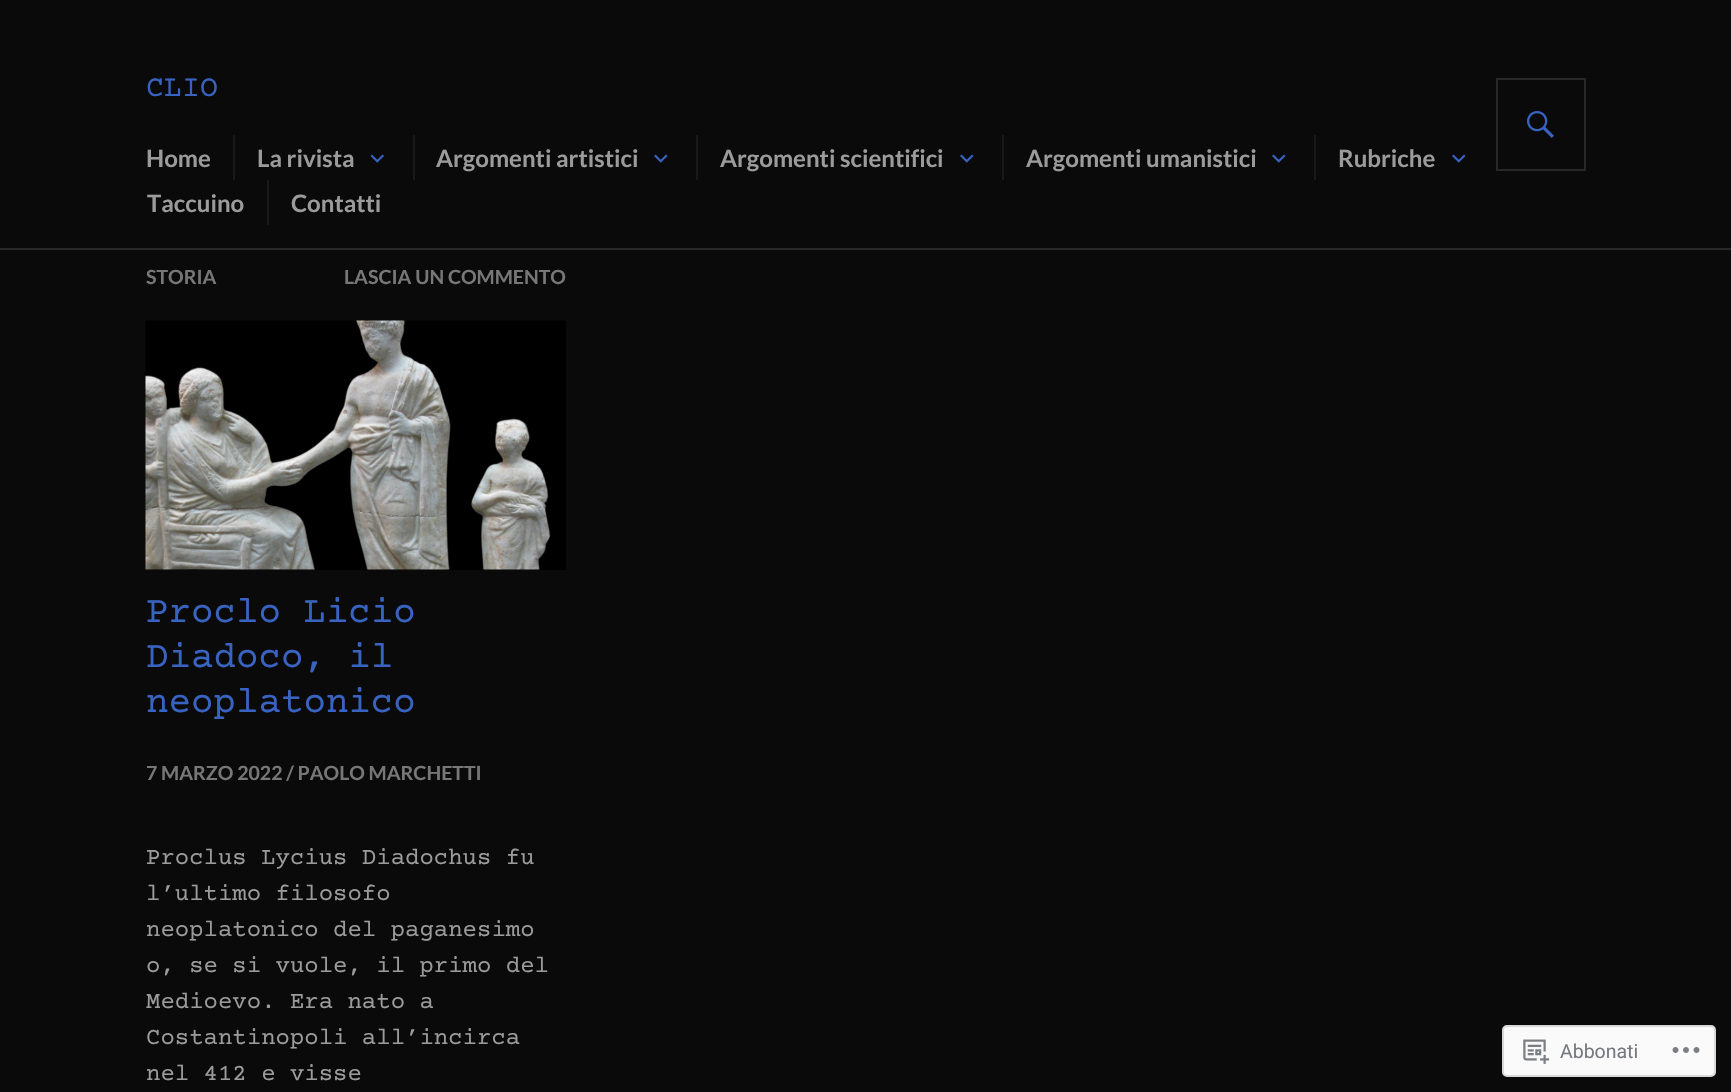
void draw(SkCanvas* canvas) {
    SkPaint paint;
    paint.setAntiAlias(true);
    canvas->clear(0xFF0A0A0A);
    paint.setColor(0xFF282828);
    canvas->drawRect(SkRect::MakeXYWH(0, 248, 1731, 2), paint);
    SkFont font1(fontMgr->matchFamilyStyle("Courier Prime", SkFontStyle::Normal()), 30);
    font1.setSubpixel(true);
    paint.setColor(0xFF3863C1);
    canvas->drawString("CLIO", 146, 96, font1, paint);
    paint.setStyle(SkPaint::kStroke_Style);
    paint.setStrokeWidth(2);
    paint.setColor(0xFF282828);
    canvas->drawRect(SkRect::MakeXYWH(1497, 79, 88, 91), paint);
    canvas->drawImageRect(SkImages::DeferredFromEncodedData(SkData::MakeFromFileName("img1.png")), SkRect::MakeXYWH(1527, 111, 27, 27), SkSamplingOptions());
    SkFont font2(fontMgr->matchFamilyStyle("Lato", SkFontStyle::Bold()), 24);
    font2.setSubpixel(true);
    paint.setStyle(SkPaint::kFill_Style);
    paint.setColor(0xFF9B9B9B);
    canvas->drawString("Home", 146, 167, font2, paint);
    paint.setColor(0xFF191919);
    canvas->drawRect(SkRect::MakeXYWH(233, 135, 2, 45), paint);
    paint.setColor(0xFF9B9B9B);
    canvas->drawString("La rivista", 257, 167, font2, paint);
    canvas->drawImageRect(SkImages::DeferredFromEncodedData(SkData::MakeFromFileName("img2.png")), SkRect::MakeXYWH(370, 154, 14, 9), SkSamplingOptions());
    paint.setColor(0xFF191919);
    canvas->drawRect(SkRect::MakeXYWH(413, 135, 2, 45), paint);
    paint.setColor(0xFF9B9B9B);
    canvas->drawString("Argomenti artistici", 436, 167, font2, paint);
    canvas->drawImageRect(SkImages::DeferredFromEncodedData(SkData::MakeFromFileName("img3.png")), SkRect::MakeXYWH(654, 154, 14, 9), SkSamplingOptions());
    paint.setColor(0xFF191919);
    canvas->drawRect(SkRect::MakeXYWH(696, 135, 2, 45), paint);
    paint.setColor(0xFF9B9B9B);
    canvas->drawString("Argomenti scientifici", 720, 167, font2, paint);
    canvas->drawImageRect(SkImages::DeferredFromEncodedData(SkData::MakeFromFileName("img3.png")), SkRect::MakeXYWH(960, 154, 14, 9), SkSamplingOptions());
    paint.setColor(0xFF191919);
    canvas->drawRect(SkRect::MakeXYWH(1002, 135, 2, 45), paint);
    paint.setColor(0xFF9B9B9B);
    canvas->drawString("Argomenti umanistici", 1026, 167, font2, paint);
    canvas->drawImageRect(SkImages::DeferredFromEncodedData(SkData::MakeFromFileName("img3.png")), SkRect::MakeXYWH(1272, 154, 14, 9), SkSamplingOptions());
    paint.setColor(0xFF191919);
    canvas->drawRect(SkRect::MakeXYWH(1314, 135, 2, 45), paint);
    paint.setColor(0xFF9B9B9B);
    canvas->drawString("Rubriche", 1338, 167, font2, paint);
    canvas->drawImageRect(SkImages::DeferredFromEncodedData(SkData::MakeFromFileName("img3.png")), SkRect::MakeXYWH(1452, 154, 14, 9), SkSamplingOptions());
    canvas->drawString("Taccuino", 147, 212, font2, paint);
    paint.setColor(0xFF191919);
    canvas->drawRect(SkRect::MakeXYWH(267, 180, 2, 45), paint);
    paint.setColor(0xFF9B9B9B);
    canvas->drawString("Contatti", 291, 212, font2, paint);
    SkFont font3(fontMgr->matchFamilyStyle("Lato", SkFontStyle::Bold()), 19.5f);
    font3.setSubpixel(true);
    paint.setColor(0xFF777777);
    canvas->drawString("STORIA", 146, 284, font3, paint);
    canvas->drawString("LASCIA UN COMMENTO", 344, 284, font3, paint);
    paint.setColor(0xFF000000);
    canvas->drawRect(SkRect::MakeXYWH(146, 321, 420, 249), paint);
    canvas->drawImageRect(SkImages::DeferredFromEncodedData(SkData::MakeFromFileName("img4.png")), SkRect::MakeXYWH(145, 320, 420, 250), SkSamplingOptions());
    SkFont font4(fontMgr->matchFamilyStyle("Courier Prime", SkFontStyle::Normal()), 37.5f);
    font4.setSubpixel(true);
    paint.setColor(0xFF3863C1);
    canvas->drawString("Proclo Licio", 146, 622, font4, paint);
    canvas->drawString("Diadoco, il", 146, 667, font4, paint);
    canvas->drawString("neoplatonico", 146, 712, font4, paint);
    paint.setColor(0xFF777777);
    canvas->drawString("7 MARZO 2022 / PAOLO MARCHETTI", 146, 780, font3, paint);
    SkFont font5(fontMgr->matchFamilyStyle("Courier Prime", SkFontStyle::Normal()), 24);
    font5.setSubpixel(true);
    paint.setColor(0xFF9B9B9B);
    canvas->drawString("Proclus Lycius Diadochus fu", 146, 864, font5, paint);
    canvas->drawString("l’ultimo filosofo", 146, 900, font5, paint);
    canvas->drawString("neoplatonico del paganesimo", 146, 936, font5, paint);
    canvas->drawString("o, se si vuole, il primo del", 146, 972, font5, paint);
    canvas->drawString("Medioevo. Era nato a", 146, 1008, font5, paint);
    canvas->drawString("Costantinopoli all’incirca", 146, 1044, font5, paint);
    canvas->drawString("nel 412 e visse", 146, 1080, font5, paint);
    paint.setColor(0xFFFAFAFA);
    canvas->drawRoundRect(SkRect::MakeXYWH(1503, 1026, 212, 50), 4, 4, paint);
    paint.setStyle(SkPaint::kStroke_Style);
    paint.setColor(0xFFD8D8DA);
    canvas->drawRoundRect(SkRect::MakeXYWH(1503, 1026, 212, 50), 4, 4, paint);
    canvas->drawImageRect(SkImages::DeferredFromEncodedData(SkData::MakeFromFileName("img5.png")), SkRect::MakeXYWH(1523, 1039, 27, 25), SkSamplingOptions());
    SkFont font6(fontMgr->matchFamilyStyle("Roboto", SkFontStyle::Normal()), 19.5f);
    font6.setSubpixel(true);
    paint.setStyle(SkPaint::kFill_Style);
    paint.setColor(0xFF767A80);
    canvas->drawString("Abbonati", 1560, 1058, font6, paint);
    canvas->drawImageRect(SkImages::DeferredFromEncodedData(SkData::MakeFromFileName("img6.png")), SkRect::MakeXYWH(1672, 1047, 28, 6), SkSamplingOptions());
}
